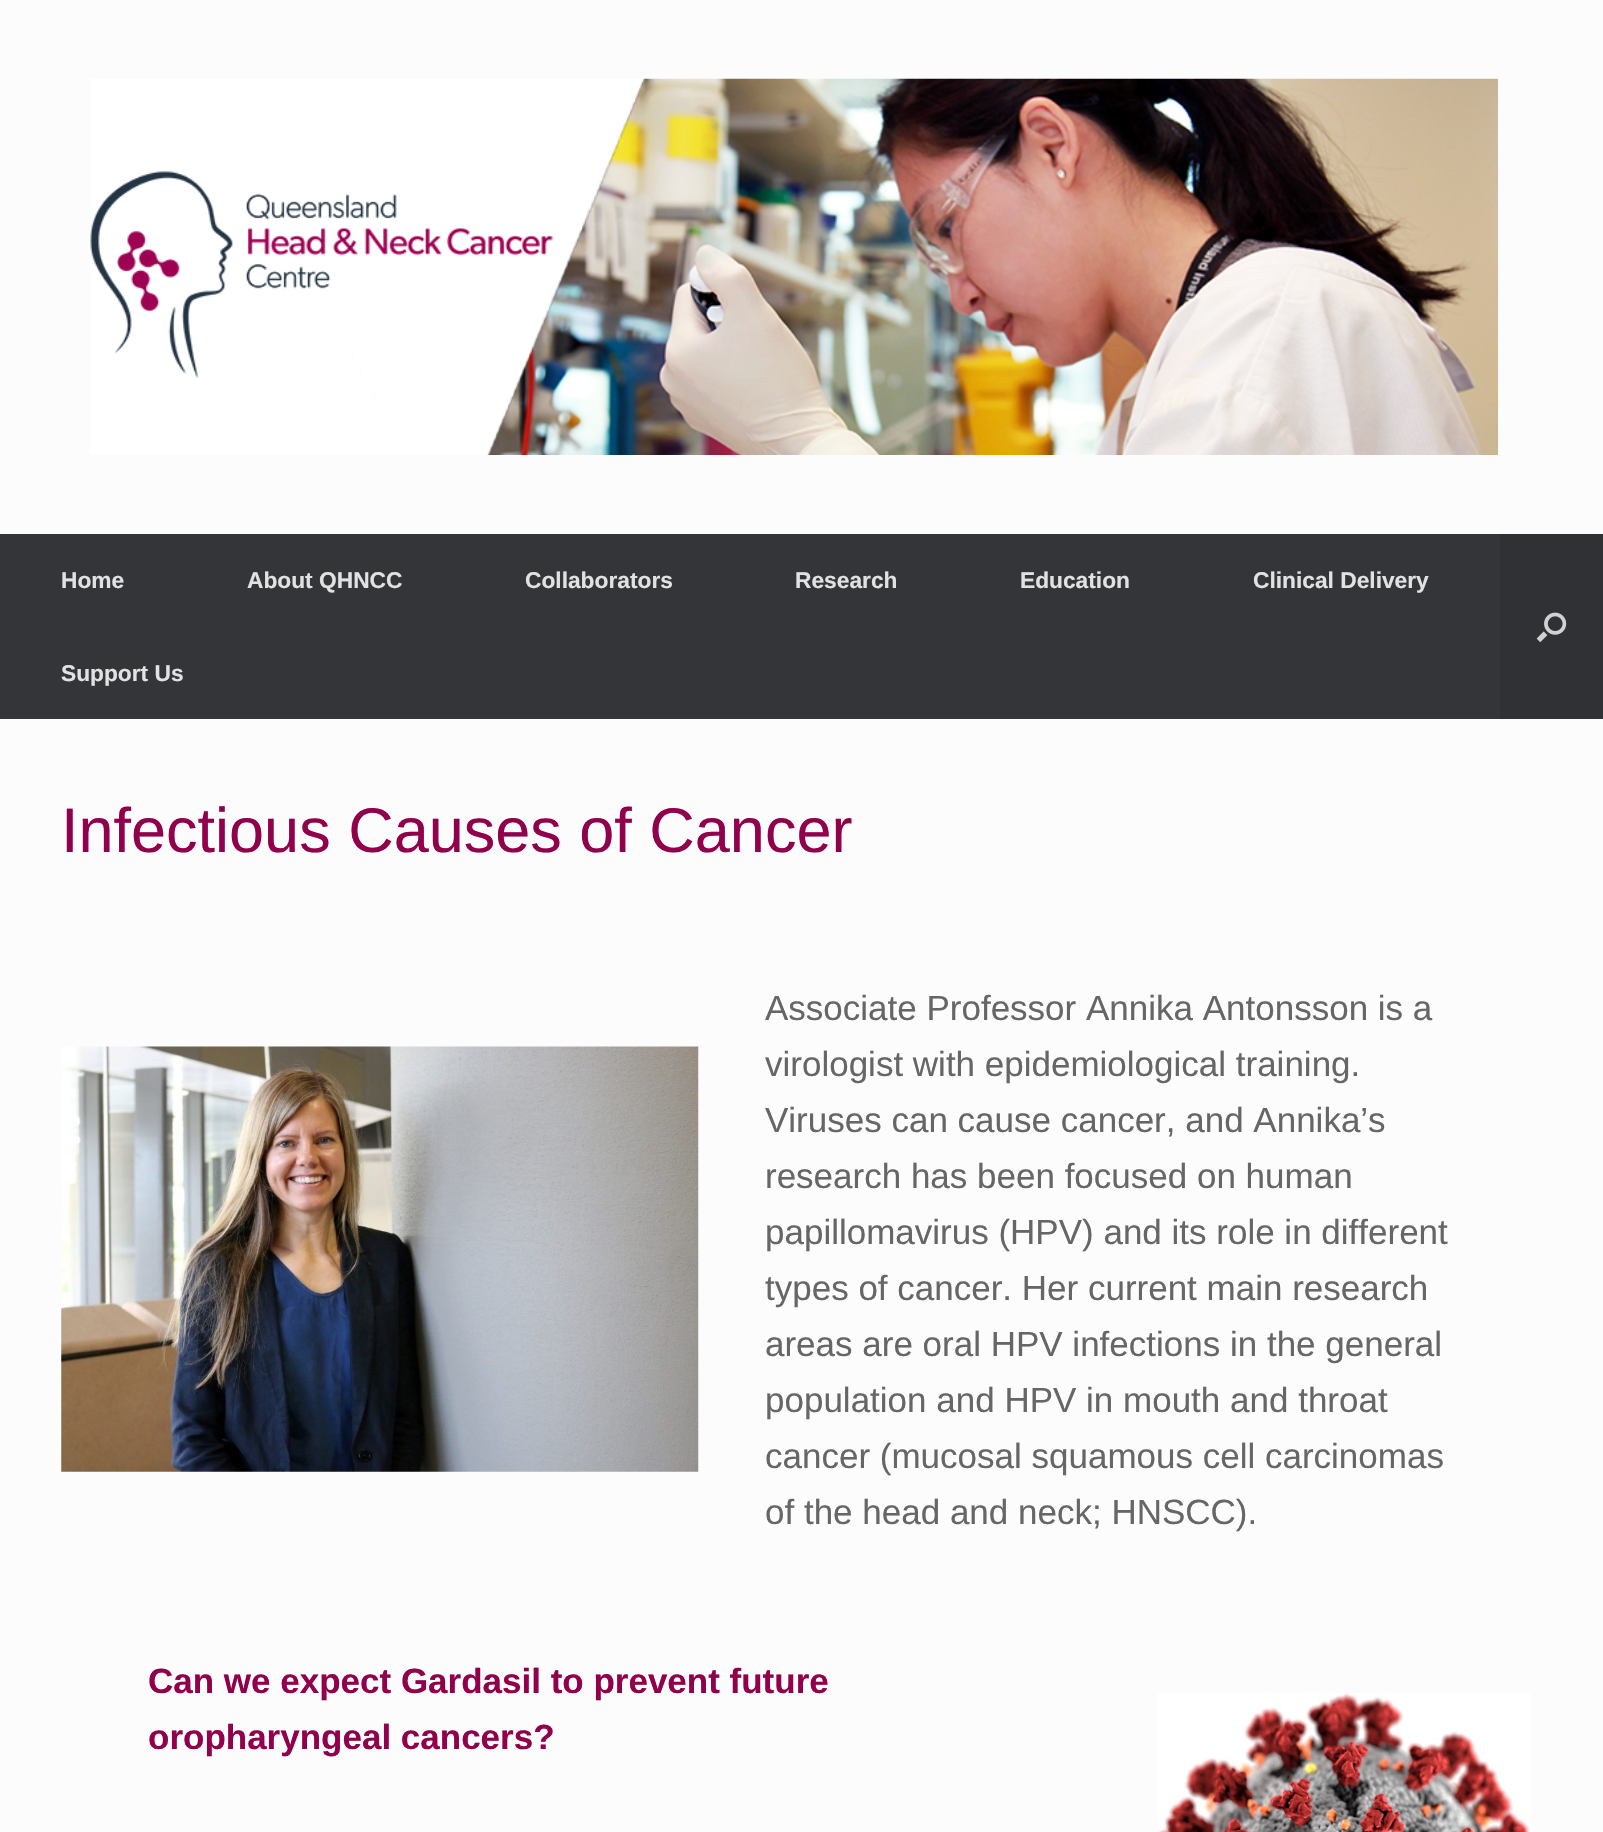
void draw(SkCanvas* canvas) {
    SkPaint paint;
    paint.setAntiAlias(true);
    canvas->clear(0xFFFCFCFC);
    canvas->drawImageRect(SkImages::DeferredFromEncodedData(SkData::MakeFromFileName("img1.png")), SkRect::MakeXYWH(90, 78, 1408, 377), SkSamplingOptions());
    paint.setColor(0xFF343538);
    canvas->drawRect(SkRect::MakeXYWH(0, 534, 1500, 185), paint);
    SkFont font1(fontMgr->matchFamilyStyle("Liberation Sans", SkFontStyle::Bold()), 22.75f);
    font1.setSubpixel(true);
    paint.setColor(0xFFE2E2E2);
    canvas->drawString("Home", 61, 588, font1, paint);
    canvas->drawString("About QHNCC", 247, 588, font1, paint);
    canvas->drawString("Collaborators", 525, 588, font1, paint);
    canvas->drawString("Research", 795, 588, font1, paint);
    canvas->drawString("Education", 1020, 588, font1, paint);
    canvas->drawString("Clinical Delivery", 1253, 588, font1, paint);
    canvas->drawString("Support Us", 61, 681, font1, paint);
    paint.setColor(0xFF303134);
    canvas->drawRect(SkRect::MakeXYWH(1500, 534, 103, 185), paint);
    canvas->drawImageRect(SkImages::DeferredFromEncodedData(SkData::MakeFromFileName("img2.png")), SkRect::MakeXYWH(1536, 612, 31, 31), SkSamplingOptions());
    SkFont font2(fontMgr->matchFamilyStyle("Liberation Sans", SkFontStyle::Normal()), 63);
    font2.setSubpixel(true);
    paint.setColor(0xFF91004B);
    canvas->drawString("Infectious Causes of Cancer", 61, 852, font2, paint);
    canvas->drawImageRect(SkImages::DeferredFromEncodedData(SkData::MakeFromFileName("img3.png")), SkRect::MakeXYWH(61, 1046, 638, 426), SkSamplingOptions());
    SkFont font3(fontMgr->matchFamilyStyle("Liberation Sans", SkFontStyle::Normal()), 35);
    font3.setSubpixel(true);
    paint.setColor(0xFF666666);
    canvas->drawString("Associate Professor Annika Antonsson is a", 765, 1020, font3, paint);
    canvas->drawString("virologist with epidemiological training.", 765, 1076, font3, paint);
    canvas->drawString("Viruses can cause cancer, and Annika’s", 765, 1132, font3, paint);
    canvas->drawString("research has been focused on human", 765, 1188, font3, paint);
    canvas->drawString("papillomavirus (HPV) and its role in different", 765, 1244, font3, paint);
    canvas->drawString("types of cancer. Her current main research", 765, 1300, font3, paint);
    canvas->drawString("areas are oral HPV infections in the general", 765, 1356, font3, paint);
    canvas->drawString("population and HPV in mouth and throat", 765, 1412, font3, paint);
    canvas->drawString("cancer (mucosal squamous cell carcinomas", 765, 1468, font3, paint);
    canvas->drawString("of the head and neck; HNSCC).", 765, 1524, font3, paint);
    SkFont font4(fontMgr->matchFamilyStyle("Liberation Sans", SkFontStyle::Bold()), 35);
    font4.setSubpixel(true);
    paint.setColor(0xFF91004B);
    canvas->drawString("Can we expect Gardasil to prevent future", 148, 1693, font4, paint);
    canvas->drawString("oropharyngeal cancers?", 148, 1749, font4, paint);
    canvas->drawImageRect(SkImages::DeferredFromEncodedData(SkData::MakeFromFileName("img4.png")), SkRect::MakeXYWH(1158, 1693, 372, 139), SkSamplingOptions());
}
